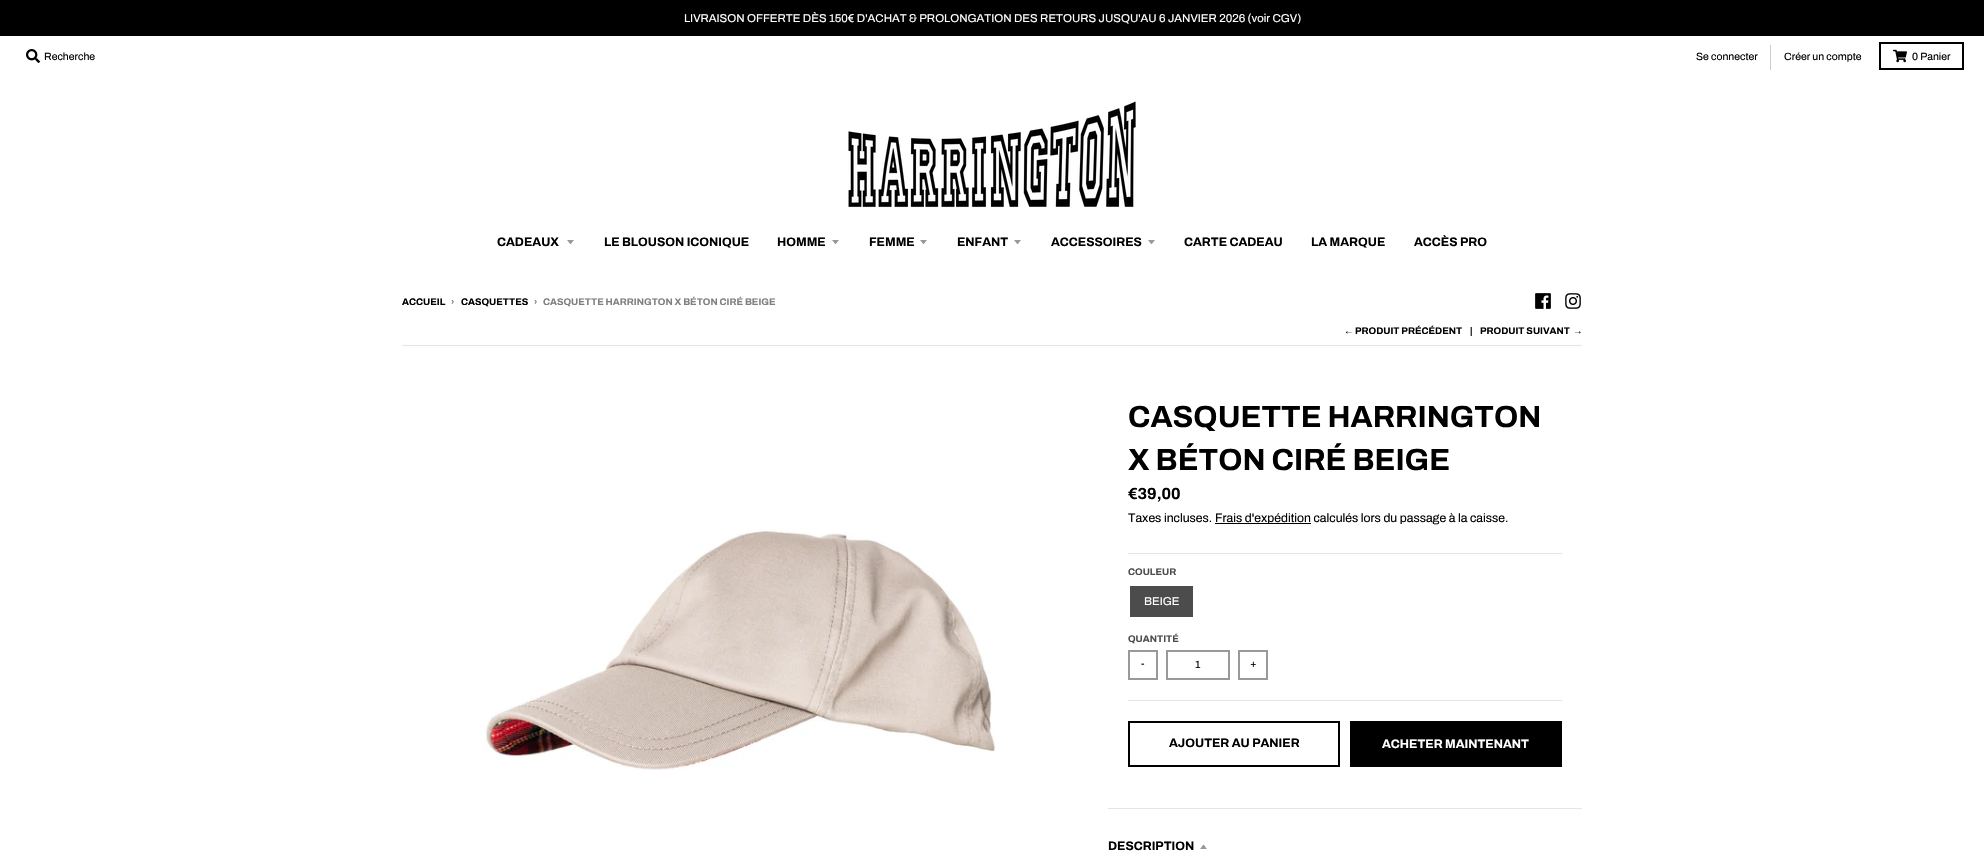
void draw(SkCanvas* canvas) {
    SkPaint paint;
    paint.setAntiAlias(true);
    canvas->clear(0xFFFFFFFF);
    paint.setColor(0xFF000000);
    canvas->drawRect(SkRect::MakeXYWH(0, 0, 1984, 36), paint);
    SkFont font1(fontMgr->matchFamilyStyle("Archivo", SkFontStyle::Normal()), 11.38f);
    font1.setSubpixel(true);
    paint.setColor(0xFFFFFFFF);
    canvas->drawString("LIVRAISON OFFERTE DÈS 150€ D'ACHAT & PROLONGATION DES RETOURS JUSQU'AU 6 JANVIER 2026 (voir CGV)", 684, 22, font1, paint);
    canvas->drawImageRect(SkImages::DeferredFromEncodedData(SkData::MakeFromFileName("img1.png")), SkRect::MakeXYWH(26, 49, 14, 14), SkSamplingOptions());
    SkFont font2(fontMgr->matchFamilyStyle("Archivo", SkFontStyle::Normal()), 10.5f);
    font2.setSubpixel(true);
    paint.setColor(0xFF000000);
    canvas->drawString("Recherche", 44, 60, font2, paint);
    paint.setColor(0xFFCCCCCC);
    canvas->drawRect(SkRect::MakeXYWH(1770, 45, 1, 25), paint);
    paint.setColor(0xFF000000);
    canvas->drawString("Se connecter", 1696, 60, font2, paint);
    canvas->drawString("Créer un compte", 1784, 60, font2, paint);
    paint.setStyle(SkPaint::kStroke_Style);
    paint.setStrokeWidth(2);
    canvas->drawRect(SkRect::MakeXYWH(1880, 43, 83, 26), paint);
    canvas->drawImageRect(SkImages::DeferredFromEncodedData(SkData::MakeFromFileName("img2.png")), SkRect::MakeXYWH(1893, 49, 14, 14), SkSamplingOptions());
    paint.setStyle(SkPaint::kFill_Style);
    canvas->drawString("0 Panier", 1912, 60, font2, paint);
    canvas->drawImageRect(SkImages::DeferredFromEncodedData(SkData::MakeFromFileName("img3.png")), SkRect::MakeXYWH(848, 101, 288, 107), SkSamplingOptions());
    SkFont font3(fontMgr->matchFamilyStyle("Archivo", SkFontStyle::Bold()), 12.25f);
    font3.setSubpixel(true);
    canvas->drawString("CADEAUX", 497, 246, font3, paint);
    paint.setColor(0xFF999999);
    canvas->drawPath(SkPathBuilder().moveTo(567, 240).cubicTo(571.5f, 245.5f, 569.5f, 245.5f, 574, 240).close().detach(), paint);
    paint.setColor(0xFF000000);
    canvas->drawString("LE BLOUSON ICONIQUE", 604, 246, font3, paint);
    canvas->drawString("HOMME", 777, 246, font3, paint);
    paint.setColor(0xFF999999);
    canvas->drawPath(SkPathBuilder().moveTo(832, 240).cubicTo(836.5f, 245.5f, 834.5f, 245.5f, 839, 240).close().detach(), paint);
    paint.setColor(0xFF000000);
    canvas->drawString("FEMME", 869, 246, font3, paint);
    paint.setColor(0xFF999999);
    canvas->drawPath(SkPathBuilder().moveTo(920, 240).cubicTo(924.5f, 245.5f, 922.5f, 245.5f, 927, 240).close().detach(), paint);
    paint.setColor(0xFF000000);
    canvas->drawString("ENFANT", 957, 246, font3, paint);
    paint.setColor(0xFF999999);
    canvas->drawPath(SkPathBuilder().moveTo(1014, 240).cubicTo(1018.5f, 245.5f, 1016.5f, 245.5f, 1021, 240).close().detach(), paint);
    paint.setColor(0xFF000000);
    canvas->drawString("ACCESSOIRES", 1051, 246, font3, paint);
    paint.setColor(0xFF999999);
    canvas->drawPath(SkPathBuilder().moveTo(1148, 240).cubicTo(1152.5f, 245.5f, 1150.5f, 245.5f, 1155, 240).close().detach(), paint);
    paint.setColor(0xFF000000);
    canvas->drawString("CARTE CADEAU", 1184, 246, font3, paint);
    canvas->drawString("LA MARQUE", 1311, 246, font3, paint);
    canvas->drawString("ACCÈS PRO", 1414, 246, font3, paint);
    SkFont font4(fontMgr->matchFamilyStyle("Archivo", SkFontStyle::Bold()), 9.6f);
    font4.setSubpixel(true);
    canvas->drawString("ACCUEIL", 402, 305, font4, paint);
    paint.setColor(0xFF7F7F7F);
    canvas->drawString("›", 451, 305, font4, paint);
    paint.setColor(0xFF000000);
    canvas->drawString("CASQUETTES", 461, 305, font4, paint);
    paint.setColor(0xFF7F7F7F);
    canvas->drawString("›", 534, 305, font4, paint);
    canvas->drawString("CASQUETTE HARRINGTON X BÉTON CIRÉ BEIGE", 543, 305, font4, paint);
    canvas->drawImageRect(SkImages::DeferredFromEncodedData(SkData::MakeFromFileName("img4.png")), SkRect::MakeXYWH(1535, 293, 16, 16), SkSamplingOptions());
    canvas->drawImageRect(SkImages::DeferredFromEncodedData(SkData::MakeFromFileName("img5.png")), SkRect::MakeXYWH(1565, 293, 16, 16), SkSamplingOptions());
    paint.setColor(0xFFE5E5E5);
    canvas->drawRect(SkRect::MakeXYWH(402, 345, 1180, 1), paint);
    SkFont font5(fontMgr->matchFamilyStyle("Liberation Sans", SkFontStyle::Bold()), 9.6f);
    font5.setSubpixel(true);
    paint.setColor(0xFF000000);
    canvas->drawString("←", 1344, 334, font5, paint);
    canvas->drawString("PRODUIT PRÉCÉDENT", 1355, 334, font4, paint);
    canvas->drawString("|", 1470, 334, font4, paint);
    canvas->drawString("PRODUIT SUIVANT", 1480, 334, font4, paint);
    canvas->drawString("→", 1573, 334, font5, paint);
    canvas->drawImageRect(SkImages::DeferredFromEncodedData(SkData::MakeFromFileName("img6.png")), SkRect::MakeXYWH(484, 528, 512, 242), SkSamplingOptions());
    paint.setColor(0xFFE5E5E5);
    canvas->drawRect(SkRect::MakeXYWH(1108, 808, 474, 1), paint);
    SkFont font6(fontMgr->matchFamilyStyle("Archivo", SkFontStyle::Bold()), 30.6f);
    font6.setSubpixel(true);
    paint.setColor(0xFF000000);
    canvas->drawString("CASQUETTE HARRINGTON", 1128, 427, font6, paint);
    canvas->drawString("X BÉTON CIRÉ BEIGE", 1128, 470, font6, paint);
    paint.setColor(0xFFE5E5E5);
    canvas->drawRect(SkRect::MakeXYWH(1128, 553, 434, 1), paint);
    SkFont font7(fontMgr->matchFamilyStyle("Archivo", SkFontStyle::Bold()), 16);
    font7.setSubpixel(true);
    paint.setColor(0xFF000000);
    canvas->drawString("€39,00", 1128, 499, font7, paint);
    SkFont font8(fontMgr->matchFamilyStyle("Archivo", SkFontStyle::Normal()), 12.25f);
    font8.setSubpixel(true);
    canvas->drawString("Taxes incluses.", 1128, 522, font8, paint);
    canvas->drawRect(SkRect::MakeXYWH(1215, 523, 96, 1), paint);
    canvas->drawString("Frais d'expédition calculés lors du passage à la caisse.", 1215, 522, font8, paint);
    paint.setColor(0xFFE5E5E5);
    canvas->drawRect(SkRect::MakeXYWH(1128, 700, 434, 1), paint);
    paint.setColor(0xFF4C4C4C);
    canvas->drawString("COULEUR", 1128, 575, font4, paint);
    canvas->drawRect(SkRect::MakeXYWH(1130, 586, 63, 31), paint);
    paint.setColor(0xFFFFFFFF);
    canvas->drawString("BEIGE", 1144, 605, font1, paint);
    paint.setColor(0xFF4C4C4C);
    canvas->drawString("QUANTITÉ", 1128, 642, font4, paint);
    paint.setStyle(SkPaint::kStroke_Style);
    paint.setColor(0xFF999999);
    canvas->drawRect(SkRect::MakeXYWH(1129, 651, 28, 28), paint);
    paint.setStyle(SkPaint::kFill_Style);
    paint.setColor(0xFF000000);
    canvas->drawString("-", 1141, 667, font2, paint);
    paint.setStyle(SkPaint::kStroke_Style);
    paint.setColor(0xFF999999);
    canvas->drawRect(SkRect::MakeXYWH(1167, 651, 62, 28), paint);
    paint.setStyle(SkPaint::kFill_Style);
    paint.setColor(0xFF000000);
    canvas->drawString("1", 1195, 668, font2, paint);
    paint.setStyle(SkPaint::kStroke_Style);
    paint.setColor(0xFF999999);
    canvas->drawRect(SkRect::MakeXYWH(1239, 651, 28, 28), paint);
    paint.setStyle(SkPaint::kFill_Style);
    paint.setColor(0xFF000000);
    canvas->drawString("+", 1250, 667, font2, paint);
    paint.setStyle(SkPaint::kStroke_Style);
    canvas->drawRect(SkRect::MakeXYWH(1129, 722, 210, 44), paint);
    paint.setStyle(SkPaint::kFill_Style);
    canvas->drawString("AJOUTER AU PANIER", 1169, 747, font3, paint);
    canvas->drawRect(SkRect::MakeXYWH(1350, 721, 212, 46), paint);
    paint.setColor(0xFFFFFFFF);
    canvas->drawString("ACHETER MAINTENANT", 1382, 748, font3, paint);
    paint.setColor(0xFF000000);
    canvas->drawString("DESCRIPTION", 1108, 850, font3, paint);
    paint.setColor(0xFF999999);
    canvas->drawPath(SkPathBuilder().moveTo(1200, 849).cubicTo(1204.5f, 843.5f, 1202.5f, 843, 1207, 849).close().detach(), paint);
}
